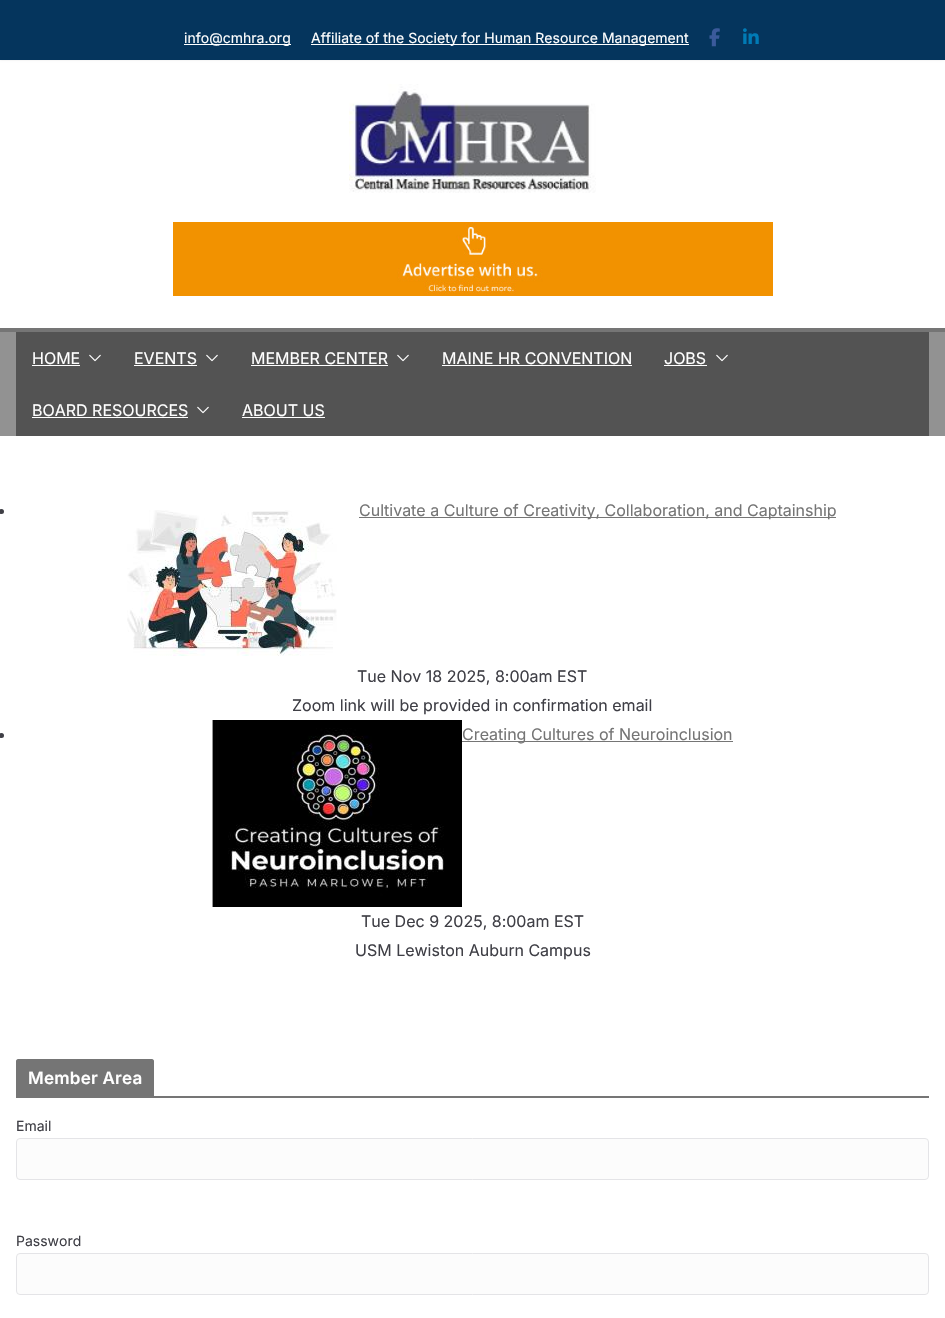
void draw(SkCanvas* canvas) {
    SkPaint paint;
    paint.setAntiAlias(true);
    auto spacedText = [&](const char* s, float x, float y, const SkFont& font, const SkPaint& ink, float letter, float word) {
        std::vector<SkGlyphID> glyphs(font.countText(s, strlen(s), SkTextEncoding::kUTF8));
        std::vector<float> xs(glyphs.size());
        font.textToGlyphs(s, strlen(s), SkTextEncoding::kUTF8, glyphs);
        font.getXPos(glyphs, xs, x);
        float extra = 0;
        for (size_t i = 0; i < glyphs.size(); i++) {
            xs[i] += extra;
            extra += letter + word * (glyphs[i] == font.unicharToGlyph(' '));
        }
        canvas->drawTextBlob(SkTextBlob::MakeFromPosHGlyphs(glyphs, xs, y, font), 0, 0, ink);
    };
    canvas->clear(0xFFFFFFFF);
    paint.setColor(0x1A000000);
    paint.setMaskFilter(SkMaskFilter::MakeBlur(kNormal_SkBlurStyle, 1));
    canvas->drawRect(SkRect::MakeXYWH(0, 0, 945, 60), paint);
    paint.setMaskFilter(nullptr);
    paint.setColor(0xFF05355D);
    canvas->drawRect(SkRect::MakeXYWH(0, 0, 945, 60), paint);
    paint.setColor(0xFFFFFFFF);
    canvas->drawRect(SkRect::MakeXYWH(184, 44, 107, 1), paint);
    SkFont font1(fontMgr->matchFamilyStyle("Inter", SkFontStyle::Normal()), 14);
    font1.setSubpixel(true);
    canvas->drawString("info@cmhra.org", 184, 43, font1, paint);
    canvas->drawRect(SkRect::MakeXYWH(311, 44, 378, 1), paint);
    canvas->drawString("Affiliate of the Society for Human Resource Management", 311, 43, font1, paint);
    canvas->drawImageRect(SkImages::DeferredFromEncodedData(SkData::MakeFromFileName("img1.png")), SkRect::MakeXYWH(709, 28, 11, 19), SkSamplingOptions());
    canvas->drawImageRect(SkImages::DeferredFromEncodedData(SkData::MakeFromFileName("img2.png")), SkRect::MakeXYWH(743, 28, 16, 16), SkSamplingOptions());
    canvas->drawImageRect(SkImages::DeferredFromEncodedData(SkData::MakeFromFileName("img3.png")), SkRect::MakeXYWH(349, 84, 247, 109), SkSamplingOptions());
    canvas->drawImageRect(SkImages::DeferredFromEncodedData(SkData::MakeFromFileName("img4.png")), SkRect::MakeXYWH(173, 222, 600, 74), SkSamplingOptions());
    paint.setColor(0xFF929292);
    canvas->drawRect(SkRect::MakeXYWH(0, 332, 945, 104), paint);
    paint.setColor(0xFF757575);
    canvas->drawRect(SkRect::MakeXYWH(0, 328, 945, 4), paint);
    paint.setColor(0xFF535353);
    canvas->drawRect(SkRect::MakeXYWH(16, 332, 913, 104), paint);
    SkFont font2(fontMgr->matchFamilyStyle("Inter", SkFontStyle::Normal()), 16);
    font2.setSubpixel(true);
    paint.setColor(0xFFFFFFFF);
    canvas->drawString("HOME", 32, 364, font2, paint);
    canvas->drawRect(SkRect::MakeXYWH(32, 365, 48, 1), paint);
    canvas->drawImageRect(SkImages::DeferredFromEncodedData(SkData::MakeFromFileName("img5.png")), SkRect::MakeXYWH(89, 354, 12, 8), SkSamplingOptions());
    canvas->drawString("EVENTS", 134, 364, font2, paint);
    canvas->drawRect(SkRect::MakeXYWH(134, 365, 63, 1), paint);
    canvas->drawImageRect(SkImages::DeferredFromEncodedData(SkData::MakeFromFileName("img5.png")), SkRect::MakeXYWH(206, 354, 12, 8), SkSamplingOptions());
    canvas->drawString("MEMBER CENTER", 251, 364, font2, paint);
    canvas->drawRect(SkRect::MakeXYWH(251, 365, 137, 1), paint);
    canvas->drawImageRect(SkImages::DeferredFromEncodedData(SkData::MakeFromFileName("img5.png")), SkRect::MakeXYWH(397, 354, 12, 8), SkSamplingOptions());
    canvas->drawString("MAINE HR CONVENTION", 442, 364, font2, paint);
    canvas->drawRect(SkRect::MakeXYWH(442, 365, 190, 1), paint);
    canvas->drawString("JOBS", 664, 364, font2, paint);
    canvas->drawRect(SkRect::MakeXYWH(664, 365, 43, 1), paint);
    canvas->drawImageRect(SkImages::DeferredFromEncodedData(SkData::MakeFromFileName("img5.png")), SkRect::MakeXYWH(716, 354, 12, 8), SkSamplingOptions());
    canvas->drawString("BOARD RESOURCES", 32, 416, font2, paint);
    canvas->drawRect(SkRect::MakeXYWH(32, 417, 156, 1), paint);
    canvas->drawImageRect(SkImages::DeferredFromEncodedData(SkData::MakeFromFileName("img5.png")), SkRect::MakeXYWH(197, 406, 12, 8), SkSamplingOptions());
    canvas->drawString("ABOUT US", 242, 416, font2, paint);
    canvas->drawRect(SkRect::MakeXYWH(242, 417, 83, 1), paint);
    paint.setColor(0xFF3F3F46);
    canvas->drawCircle(1.5f, 511.5f, 2.5f, paint);
    canvas->drawImageRect(SkImages::DeferredFromEncodedData(SkData::MakeFromFileName("img6.png")), SkRect::MakeXYWH(127, 510, 210, 146), SkSamplingOptions());
    paint.setColor(0xFF757575);
    canvas->drawRect(SkRect::MakeXYWH(359, 517, 477, 1), paint);
    canvas->drawString("Cultivate a Culture of Creativity, Collaboration, and Captainship", 359, 516, font2, paint);
    paint.setColor(0xFF3F3F46);
    canvas->drawString("Tue Nov 18 2025, 8:00am EST", 357, 682, font2, paint);
    canvas->drawString("Zoom link will be provided in confirmation email", 292, 711, font2, paint);
    canvas->drawCircle(1.5f, 735.5f, 2.5f, paint);
    canvas->drawImageRect(SkImages::DeferredFromEncodedData(SkData::MakeFromFileName("img7.png")), SkRect::MakeXYWH(212, 720, 250, 187), SkSamplingOptions());
    paint.setColor(0xFF757575);
    canvas->drawRect(SkRect::MakeXYWH(462, 741, 271, 1), paint);
    canvas->drawString("Creating Cultures of Neuroinclusion", 462, 740, font2, paint);
    paint.setColor(0xFF3F3F46);
    canvas->drawString("Tue Dec 9 2025, 8:00am EST", 361, 927, font2, paint);
    canvas->drawString("USM Lewiston Auburn Campus", 355, 956, font2, paint);
    paint.setColor(0xFF757575);
    canvas->drawRect(SkRect::MakeXYWH(16, 1096, 913, 2), paint);
    canvas->drawPath(SkPathBuilder().moveTo(18, 1059).lineTo(152, 1059).cubicTo(153, 1059, 154, 1060, 154, 1061).lineTo(154, 1096).lineTo(16, 1096).lineTo(16, 1061).cubicTo(16, 1060, 17, 1059, 18, 1059).close().detach(), paint);
    SkFont font3(fontMgr->matchFamilyStyle("Inter", SkFontStyle(600, SkFontStyle::kNormal_Width, SkFontStyle::kUpright_Slant)), 17);
    font3.setSubpixel(true);
    paint.setColor(0xFFFFFFFF);
    spacedText("Member Area", 28, 1084, font3, paint, 0.25f, 0);
    paint.setColor(0xFF3F3F46);
    canvas->drawString("Email", 16, 1131, font1, paint);
    paint.setColor(0xFFFCFCFC);
    canvas->drawRoundRect(SkRect::MakeXYWH(16.5f, 1138.5f, 912, 41), 3.5f, 3.5f, paint);
    paint.setStyle(SkPaint::kStroke_Style);
    paint.setStrokeWidth(1);
    paint.setColor(0xFFE4E4E7);
    canvas->drawRoundRect(SkRect::MakeXYWH(16.5f, 1138.5f, 912, 41), 3.5f, 3.5f, paint);
    paint.setStyle(SkPaint::kFill_Style);
    paint.setColor(0xFF3F3F46);
    canvas->drawString("Password", 16, 1246, font1, paint);
    paint.setColor(0xFFFCFCFC);
    canvas->drawRoundRect(SkRect::MakeXYWH(16.5f, 1253.5f, 912, 41), 3.5f, 3.5f, paint);
    paint.setStyle(SkPaint::kStroke_Style);
    paint.setColor(0xFFE4E4E7);
    canvas->drawRoundRect(SkRect::MakeXYWH(16.5f, 1253.5f, 912, 41), 3.5f, 3.5f, paint);
}
